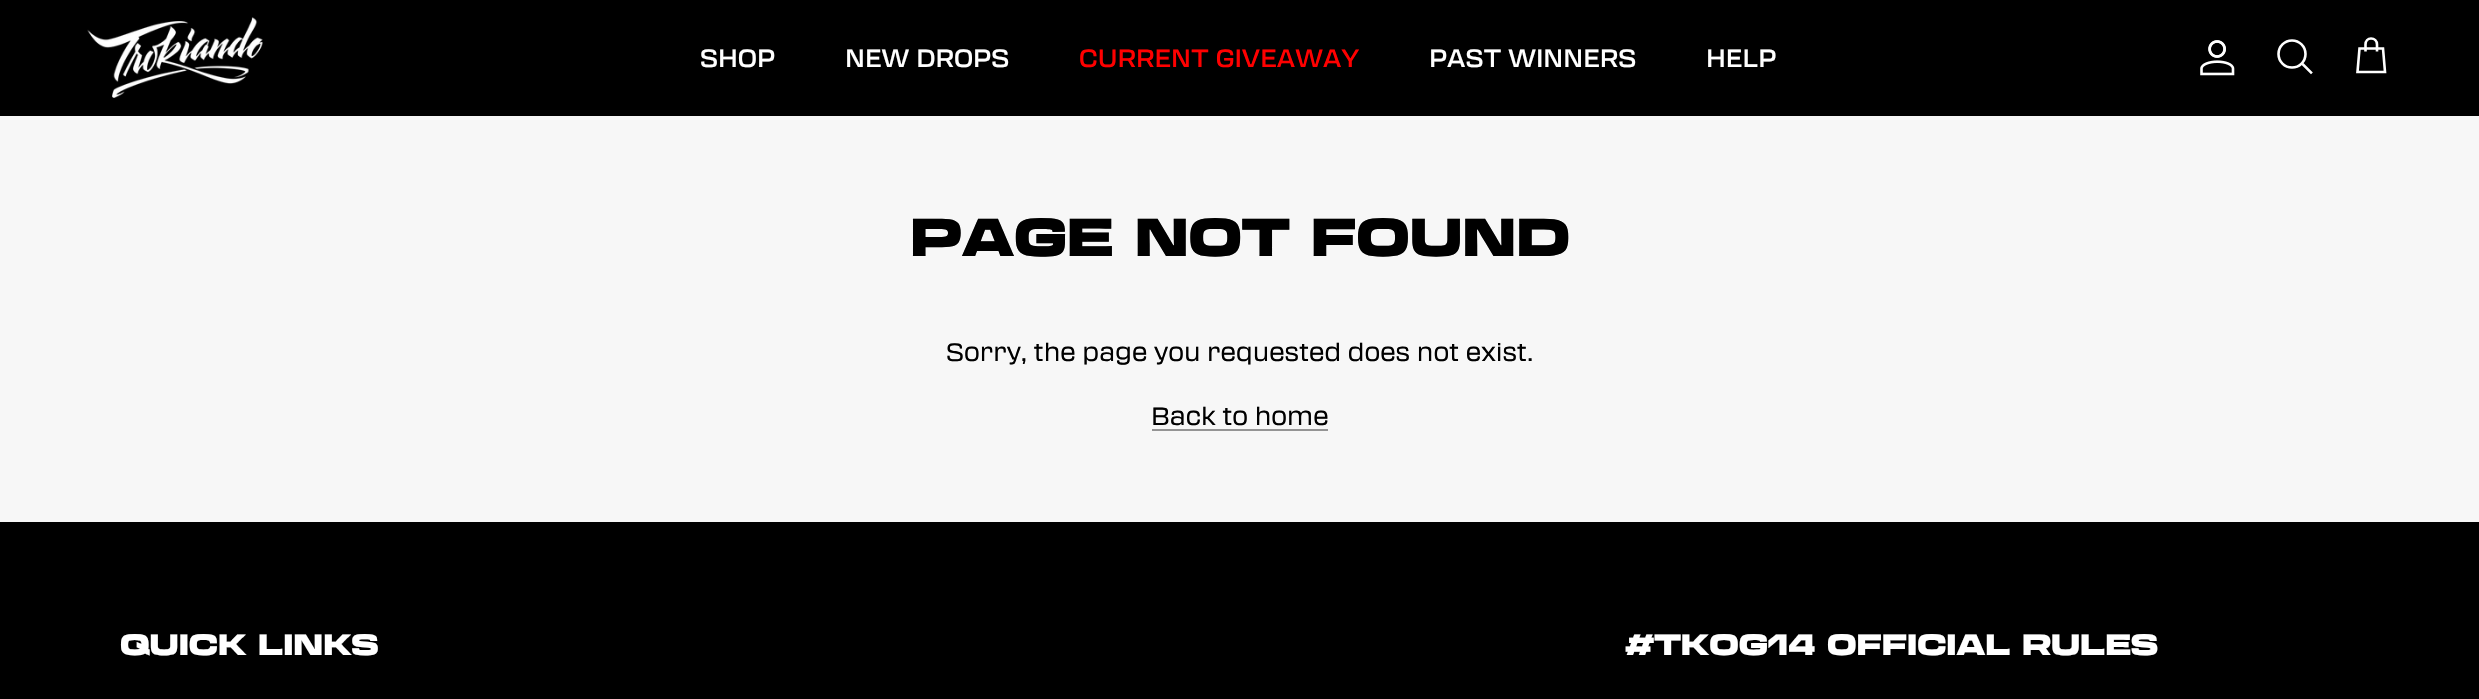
void draw(SkCanvas* canvas) {
    SkPaint paint;
    paint.setAntiAlias(true);
    canvas->clear(0xFFF7F7F7);
    paint.setColor(0xFF000000);
    canvas->drawRect(SkRect::MakeXYWH(0, 0, 2479, 116), paint);
    canvas->drawImageRect(SkImages::DeferredFromEncodedData(SkData::MakeFromFileName("img1.png")), SkRect::MakeXYWH(87, 17, 176, 81), SkSamplingOptions());
    SkFont font1(fontMgr->matchFamilyStyle("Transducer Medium", SkFontStyle(500, SkFontStyle::kNormal_Width, SkFontStyle::kUpright_Slant)), 24.5f);
    font1.setSubpixel(true);
    paint.setColor(0xFFFFFFFF);
    canvas->drawString("SHOP", 700, 67, font1, paint);
    canvas->drawString("NEW DROPS", 845, 67, font1, paint);
    paint.setColor(0xFFFF0000);
    canvas->drawString("CURRENT GIVEAWAY", 1079, 67, font1, paint);
    paint.setColor(0xFFFFFFFF);
    canvas->drawString("PAST WINNERS", 1429, 67, font1, paint);
    canvas->drawString("HELP", 1706, 67, font1, paint);
    canvas->drawImageRect(SkImages::DeferredFromEncodedData(SkData::MakeFromFileName("img2.png")), SkRect::MakeXYWH(2200, 40, 35, 36), SkSamplingOptions());
    paint.setStyle(SkPaint::kStroke_Style);
    paint.setStrokeWidth(2.6f);
    canvas->drawCircle(2292, 54, 13.5f, paint);
    paint.setStrokeCap(SkPaint::kSquare_Cap);
    canvas->drawPath(SkPathBuilder().moveTo(2303, 64.5f).lineTo(2311, 72.5f).detach(), paint);
    paint.setStrokeCap(SkPaint::kButt_Cap);
    canvas->drawPath(SkPathBuilder().moveTo(2377, 51.5f).lineTo(2377, 44.5f).cubicTo(2377, 41, 2374.5f, 38.5f, 2371, 38.5f).cubicTo(2368, 38.5f, 2365.5f, 41, 2365.5f, 44.5f).lineTo(2365.5f, 51.5f).moveTo(2359.5f, 48.5f).lineTo(2383, 48.5f).lineTo(2385, 72).lineTo(2357.5f, 72).close().detach(), paint);
    SkFont font2(fontMgr->matchFamilyStyle("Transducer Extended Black", SkFontStyle(900, SkFontStyle::kNormal_Width, SkFontStyle::kUpright_Slant)), 52.5f);
    font2.setSubpixel(true);
    paint.setStyle(SkPaint::kFill_Style);
    paint.setColor(0xFF000000);
    canvas->drawString("PAGE NOT FOUND", 910, 256, font2, paint);
    SkFont font3(fontMgr->matchFamilyStyle("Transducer", SkFontStyle::Normal()), 24.5f);
    font3.setSubpixel(true);
    canvas->drawString("Sorry, the page you requested does not exist.", 946, 361, font3, paint);
    canvas->drawString("Back to home", 1151, 425, font3, paint);
    paint.setColor(0xFF949494);
    canvas->drawRect(SkRect::MakeXYWH(1152, 429, 176, 2), paint);
    paint.setColor(0xFF000000);
    canvas->drawRect(SkRect::MakeXYWH(0, 522, 2479, 177), paint);
    SkFont font4(fontMgr->matchFamilyStyle("Transducer Extended Black", SkFontStyle(900, SkFontStyle::kNormal_Width, SkFontStyle::kUpright_Slant)), 29);
    font4.setSubpixel(true);
    paint.setColor(0xFFFFFFFF);
    canvas->drawString("QUICK LINKS", 120, 655, font4, paint);
    canvas->drawString("#TKOG14 OFFICIAL RULES", 1625, 655, font4, paint);
}
